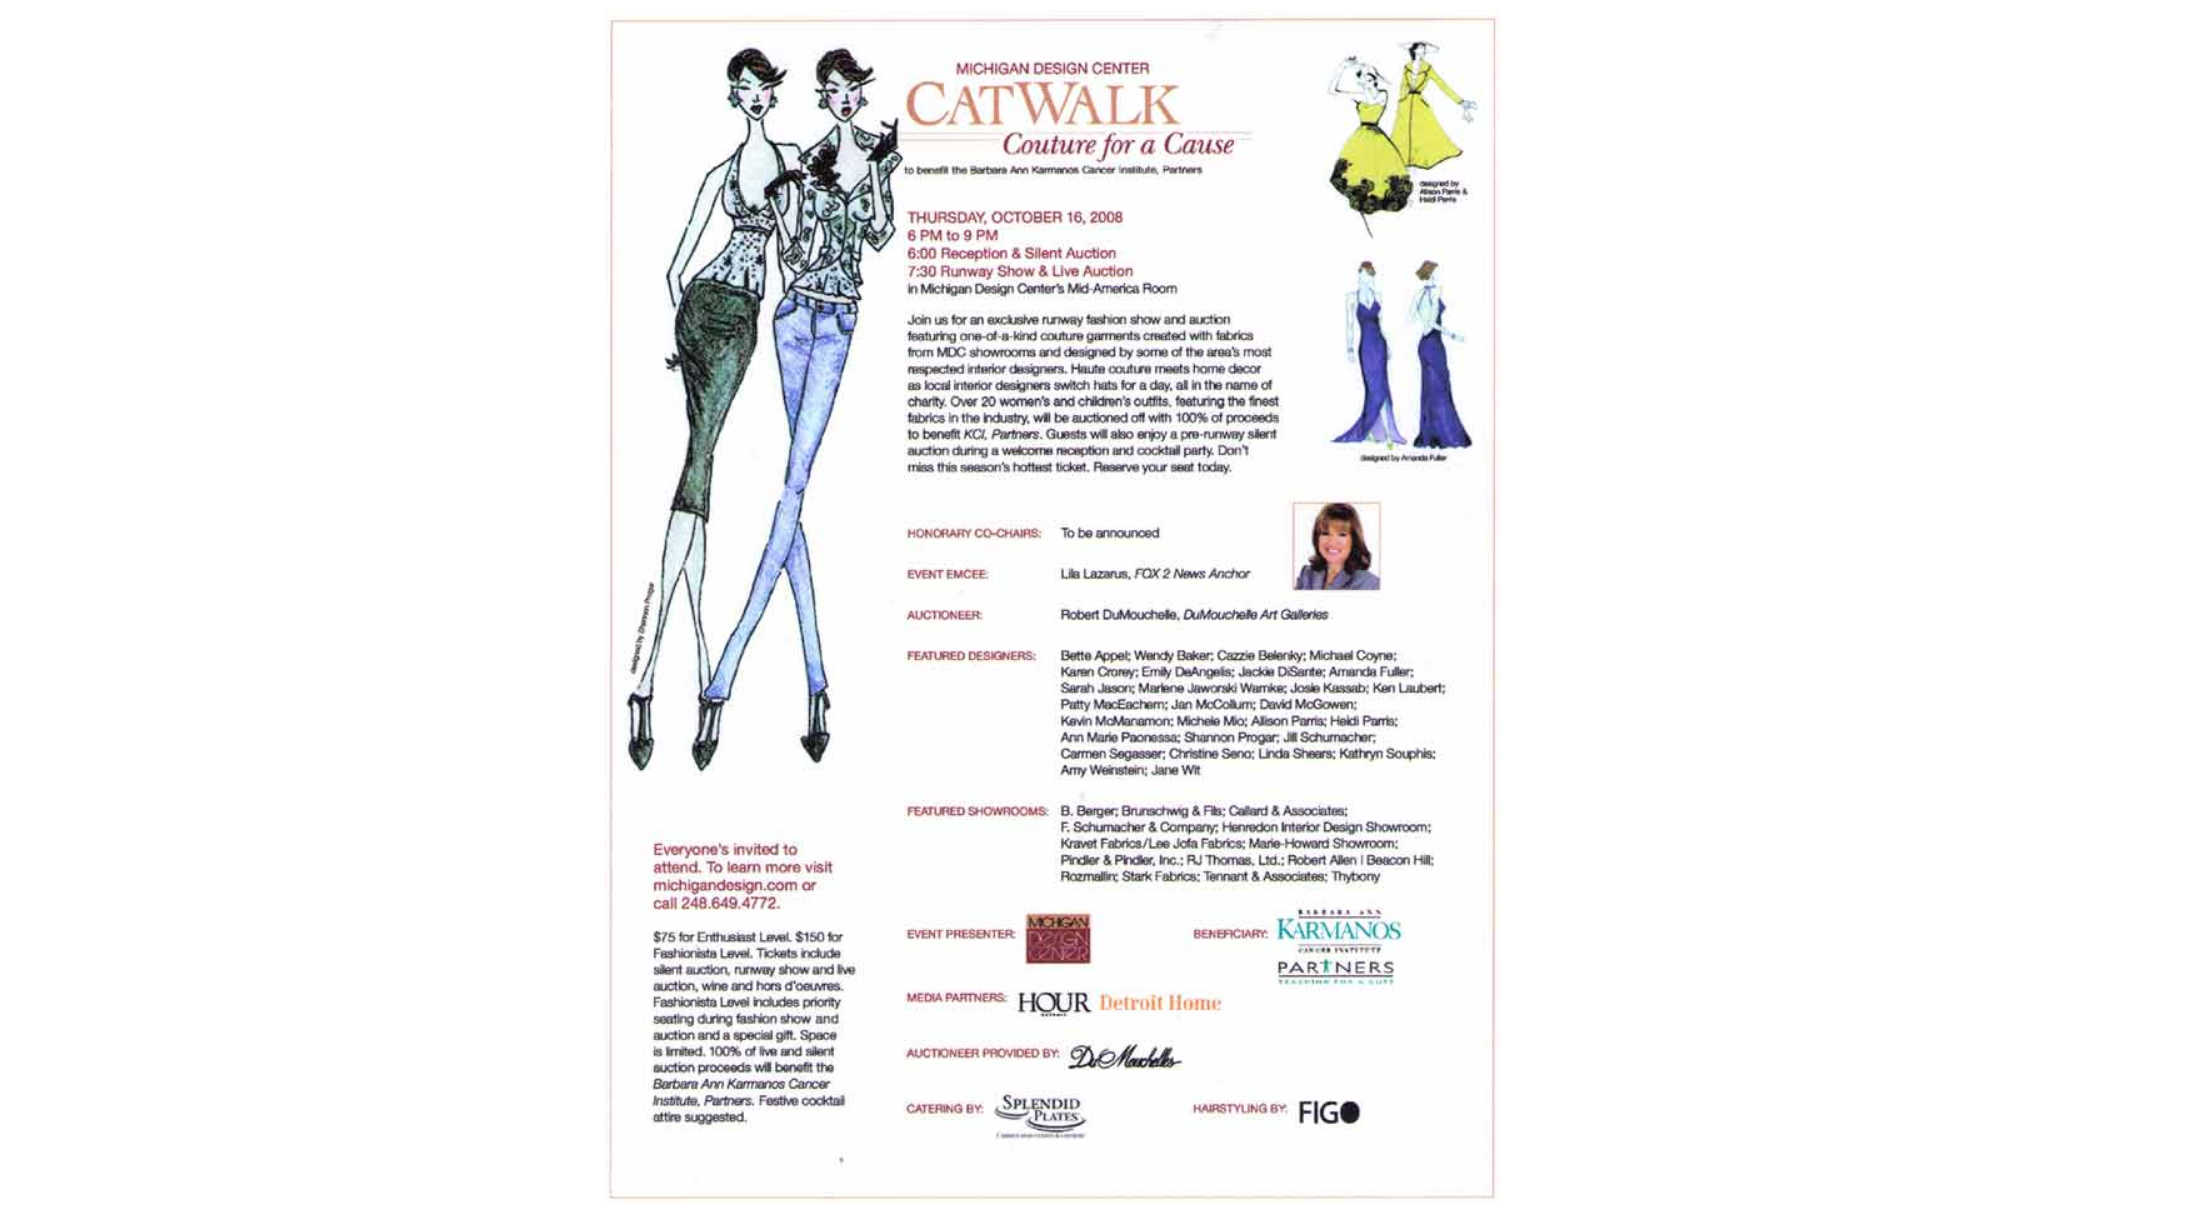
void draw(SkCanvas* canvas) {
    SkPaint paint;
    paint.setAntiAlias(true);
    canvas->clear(0xFFFFFFFF);
    canvas->drawImageRect(SkImages::DeferredFromEncodedData(SkData::MakeFromFileName("img1.png")), SkRect::MakeXYWH(604, 10, 897, 1194), SkSamplingOptions());
}
